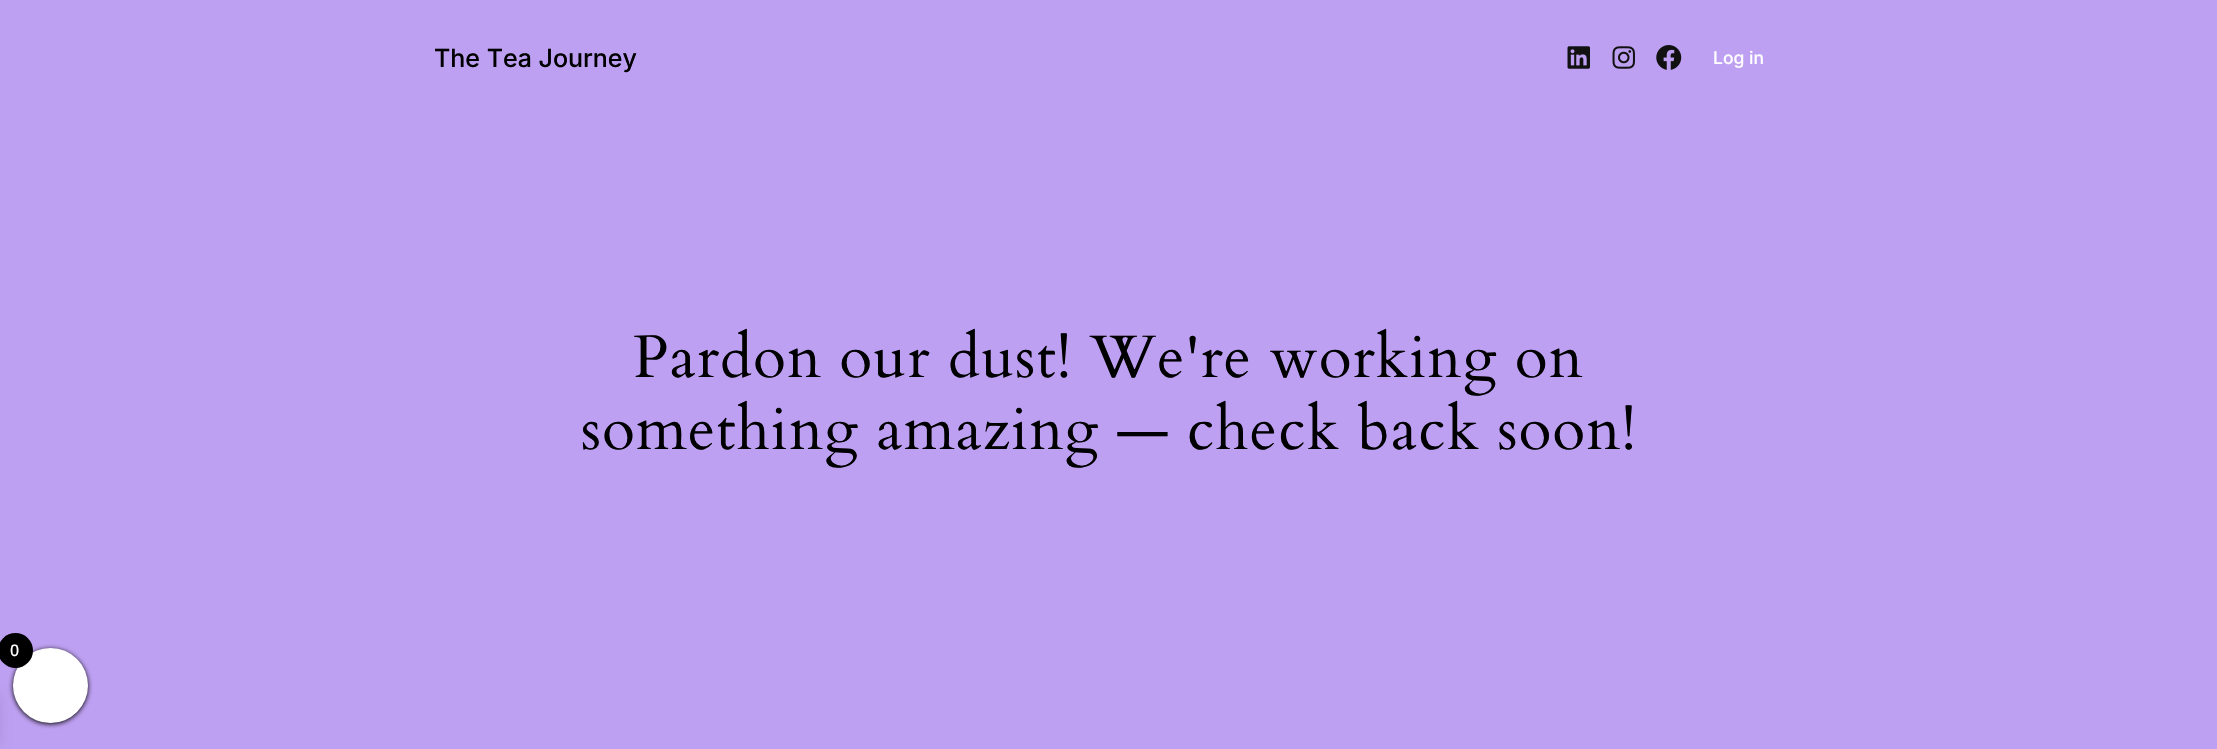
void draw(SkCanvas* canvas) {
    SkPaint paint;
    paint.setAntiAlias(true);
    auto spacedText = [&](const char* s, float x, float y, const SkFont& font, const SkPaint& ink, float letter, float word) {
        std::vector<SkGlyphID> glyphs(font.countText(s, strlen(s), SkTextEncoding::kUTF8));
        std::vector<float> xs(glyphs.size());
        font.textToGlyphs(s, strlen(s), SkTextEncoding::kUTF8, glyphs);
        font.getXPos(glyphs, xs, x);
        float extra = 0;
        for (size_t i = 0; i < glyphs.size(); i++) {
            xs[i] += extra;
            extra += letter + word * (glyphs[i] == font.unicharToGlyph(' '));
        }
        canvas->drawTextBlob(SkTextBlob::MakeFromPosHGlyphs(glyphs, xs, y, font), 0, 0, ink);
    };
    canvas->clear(0xFFBEA0F2);
    SkFont font1(fontMgr->matchFamilyStyle("Inter", SkFontStyle(500, SkFontStyle::kNormal_Width, SkFontStyle::kUpright_Slant)), 25);
    font1.setSubpixel(true);
    paint.setColor(0xFF000000);
    canvas->drawString("The Tea Journey", 434, 67, font1, paint);
    canvas->drawImageRect(SkImages::DeferredFromEncodedData(SkData::MakeFromFileName("img1.png")), SkRect::MakeXYWH(1567, 46, 23, 23), SkSamplingOptions());
    canvas->drawImageRect(SkImages::DeferredFromEncodedData(SkData::MakeFromFileName("img2.png")), SkRect::MakeXYWH(1612, 46, 23, 23), SkSamplingOptions());
    canvas->drawImageRect(SkImages::DeferredFromEncodedData(SkData::MakeFromFileName("img3.png")), SkRect::MakeXYWH(1656, 45, 26, 25), SkSamplingOptions());
    SkFont font2(fontMgr->matchFamilyStyle("Inter", SkFontStyle(500, SkFontStyle::kNormal_Width, SkFontStyle::kUpright_Slant)), 17.5f);
    font2.setSubpixel(true);
    paint.setColor(0xFFFFFFFF);
    canvas->drawString("Log in", 1713, 64, font2, paint);
    SkFont font3(fontMgr->matchFamilyStyle("Cardo", SkFontStyle::Normal()), 60);
    font3.setSubpixel(true);
    paint.setColor(0xFF000000);
    spacedText("Pardon our dust! We're working on", 633, 377, font3, paint, 1.25f, 0);
    spacedText("something amazing — check back soon!", 581, 449, font3, paint, 1.25f, 0);
    paint.setMaskFilter(SkMaskFilter::MakeBlur(kNormal_SkBlurStyle, 2.5f));
    canvas->drawRoundRect(SkRect::MakeXYWH(13, 649, 75, 75), 37.5f, 37.5f, paint);
    paint.setMaskFilter(nullptr);
    paint.setColor(0x1A000000);
    paint.setMaskFilter(SkMaskFilter::MakeBlur(kNormal_SkBlurStyle, 6));
    canvas->drawRect(SkRect::MakeXYWH(-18, 696, 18, 48), paint);
    paint.setMaskFilter(nullptr);
    paint.setColor(0xFFFFFFFF);
    canvas->drawCircle(50.5f, 685.5f, 37.5f, paint);
    paint.setColor(0xFF000000);
    canvas->drawCircle(15.5f, 650.5f, 17.5f, paint);
    SkFont font4(fontMgr->matchFamilyStyle("Open Sans", SkFontStyle(500, SkFontStyle::kNormal_Width, SkFontStyle::kUpright_Slant)), 16);
    font4.setSubpixel(true);
    paint.setColor(0xFFFFFFFF);
    canvas->drawString("0", 10, 656, font4, paint);
}
